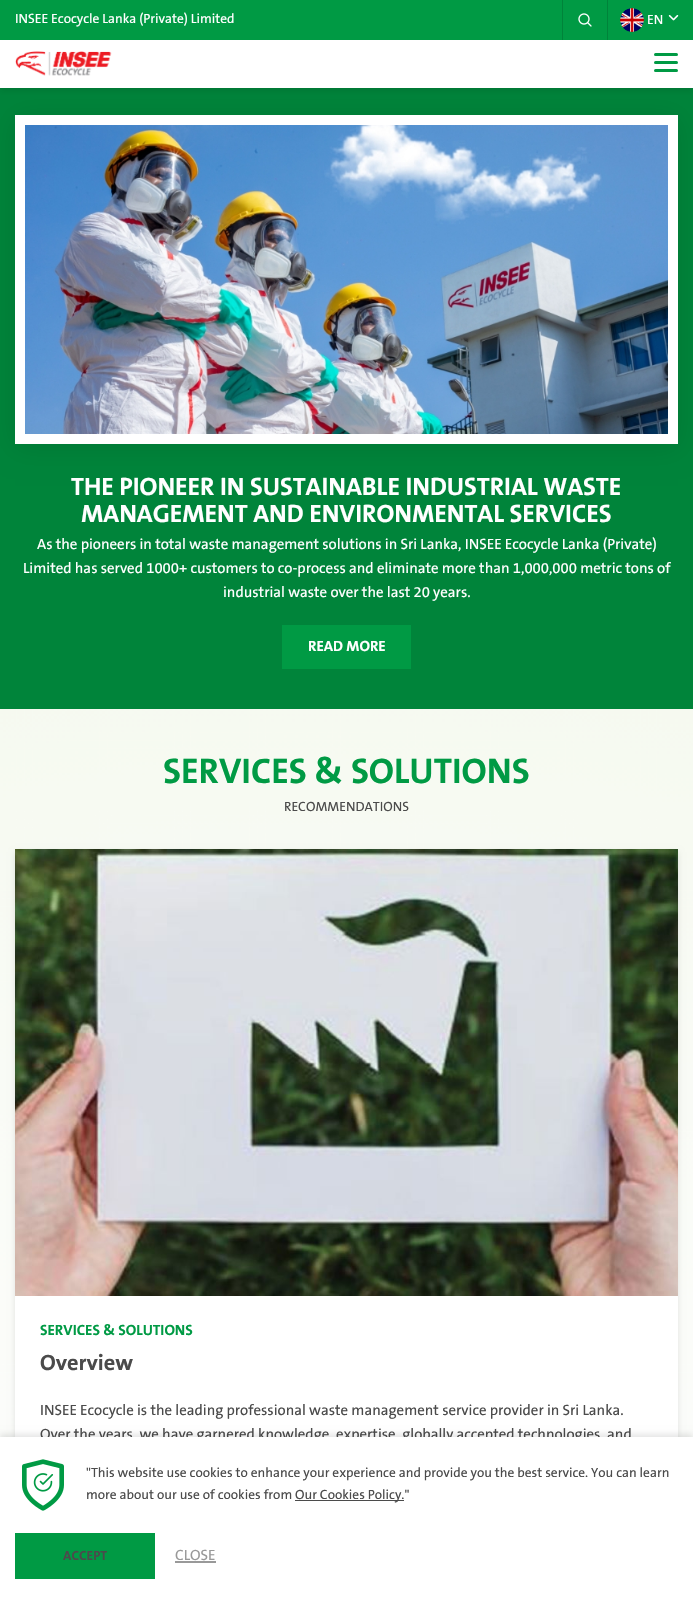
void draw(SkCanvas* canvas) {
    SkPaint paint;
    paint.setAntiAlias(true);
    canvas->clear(0xFF00843A);
    paint.setColor(0x1A000000);
    paint.setMaskFilter(SkMaskFilter::MakeBlur(kNormal_SkBlurStyle, 3));
    canvas->drawRect(SkRect::MakeXYWH(0, 3, 693, 88), paint);
    paint.setMaskFilter(nullptr);
    paint.setMaskFilter(SkMaskFilter::MakeBlur(kNormal_SkBlurStyle, 13));
    canvas->drawRect(SkRect::MakeXYWH(15, 118, 663, 329), paint);
    paint.setMaskFilter(nullptr);
    paint.setColor(0xFFFFFFFF);
    canvas->drawRect(SkRect::MakeXYWH(0, 40, 693, 48), paint);
    paint.setColor(0xFF009A44);
    canvas->drawRect(SkRect::MakeXYWH(0, 0, 693, 40), paint);
    SkFont font1(fontMgr->matchFamilyStyle("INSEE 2", SkFontStyle::Normal()), 18);
    font1.setSubpixel(true);
    paint.setColor(0xFFFFFFFF);
    canvas->drawString("INSEE Ecocycle Lanka (Private) Limited", 15, 23, font1, paint);
    paint.setColor(0xFF00833A);
    canvas->drawRect(SkRect::MakeXYWH(607, 0, 1, 40), paint);
    canvas->drawRect(SkRect::MakeXYWH(562, 0, 1, 40), paint);
    canvas->drawImageRect(SkImages::DeferredFromEncodedData(SkData::MakeFromFileName("img1.png")), SkRect::MakeXYWH(578, 13, 14, 14), SkSamplingOptions());
    canvas->drawImageRect(SkImages::DeferredFromEncodedData(SkData::MakeFromFileName("img2.png")), SkRect::MakeXYWH(620, 8, 24, 24), SkSamplingOptions());
    paint.setColor(0xFFFFFFFF);
    canvas->drawString("EN", 647, 24, font1, paint);
    canvas->drawImageRect(SkImages::DeferredFromEncodedData(SkData::MakeFromFileName("img3.png")), SkRect::MakeXYWH(668, 15, 11, 6), SkSamplingOptions());
    paint.setColor(0xFF009A44);
    canvas->drawRoundRect(SkRect::MakeXYWH(654, 53, 24, 3), 1.5f, 1.5f, paint);
    canvas->drawRoundRect(SkRect::MakeXYWH(654, 61, 24, 3), 1.5f, 1.5f, paint);
    canvas->drawRoundRect(SkRect::MakeXYWH(654, 69, 24, 3), 1.5f, 1.5f, paint);
    canvas->drawImageRect(SkImages::DeferredFromEncodedData(SkData::MakeFromFileName("img4.png")), SkRect::MakeXYWH(15, 51, 97, 25), SkSamplingOptions());
    paint.setStyle(SkPaint::kStroke_Style);
    paint.setStrokeWidth(10);
    paint.setColor(0xFFFFFFFF);
    canvas->drawRect(SkRect::MakeXYWH(20, 120, 653, 319), paint);
    canvas->drawImageRect(SkImages::DeferredFromEncodedData(SkData::MakeFromFileName("img5.png")), SkRect::MakeXYWH(25, 125, 643, 309), SkSamplingOptions());
    SkFont font2(fontMgr->matchFamilyStyle("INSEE", SkFontStyle::Normal()), 34);
    font2.setSubpixel(true);
    paint.setStyle(SkPaint::kFill_Style);
    canvas->drawString("THE PIONEER IN SUSTAINABLE INDUSTRIAL WASTE", 71, 495, font2, paint);
    canvas->drawString("MANAGEMENT AND ENVIRONMENTAL SERVICES", 81, 522, font2, paint);
    SkFont font3(fontMgr->matchFamilyStyle("INSEE 2", SkFontStyle::Normal()), 20);
    font3.setSubpixel(true);
    canvas->drawString("As the pioneers in total waste management solutions in Sri Lanka, INSEE Ecocycle Lanka (Private)", 37, 549, font3, paint);
    canvas->drawString("Limited has served 1000+ customers to co-process and eliminate more than 1,000,000 metric tons of", 23, 573, font3, paint);
    canvas->drawString("industrial waste over the last 20 years.", 223, 597, font3, paint);
    paint.setColor(0xFF009A44);
    canvas->drawRect(SkRect::MakeXYWH(282, 625, 129, 44), paint);
    SkFont font4(fontMgr->matchFamilyStyle("INSEE", SkFontStyle::Normal()), 20);
    font4.setSubpixel(true);
    paint.setColor(0xFFFFFFFF);
    canvas->drawString("READ MORE", 308, 651, font4, paint);
    canvas->drawImageRect(SkImages::DeferredFromEncodedData(SkData::MakeFromFileName("img6.png")), SkRect::MakeXYWH(0, 709, 693, 728), SkSamplingOptions());
    SkFont font5(fontMgr->matchFamilyStyle("INSEE", SkFontStyle::Normal()), 48);
    font5.setSubpixel(true);
    paint.setColor(0xFF009A44);
    canvas->drawString("SERVICES & SOLUTIONS", 163, 783, font5, paint);
    paint.setColor(0xFF4B4B4B);
    canvas->drawString("RECOMMENDATIONS", 284, 811, font1, paint);
    paint.setColor(0x1A000000);
    paint.setMaskFilter(SkMaskFilter::MakeBlur(kNormal_SkBlurStyle, 3));
    canvas->drawRect(SkRect::MakeXYWH(15, 852, 663, 671), paint);
    paint.setMaskFilter(nullptr);
    paint.setColor(0xFFFFFFFF);
    canvas->drawRect(SkRect::MakeXYWH(15, 1296, 663, 141), paint);
    canvas->drawImageRect(SkImages::DeferredFromEncodedData(SkData::MakeFromFileName("img7.png")), SkRect::MakeXYWH(15, 849, 663, 447), SkSamplingOptions());
    paint.setColor(0xFF009A44);
    canvas->drawString("SERVICES & SOLUTIONS", 40, 1335, font4, paint);
    SkFont font6(fontMgr->matchFamilyStyle("INSEE", SkFontStyle::Normal()), 30);
    font6.setSubpixel(true);
    paint.setColor(0xFF4B4B4B);
    canvas->drawString("Overview", 40, 1370, font6, paint);
    canvas->drawString("INSEE Ecocycle is the leading professional waste management service provider in Sri Lanka.", 40, 1415, font3, paint);
    canvas->drawString("Over the years, we have garnered knowledge, expertise, globally accepted technologies, and", 40, 1439, font3, paint);
    paint.setColor(0x1A000000);
    paint.setMaskFilter(SkMaskFilter::MakeBlur(kNormal_SkBlurStyle, 3));
    canvas->drawRect(SkRect::MakeXYWH(0, 1434, 693, 162), paint);
    paint.setMaskFilter(nullptr);
    paint.setColor(0xFFFFFFFF);
    canvas->drawRect(SkRect::MakeXYWH(0, 1437, 693, 162), paint);
    canvas->drawImageRect(SkImages::DeferredFromEncodedData(SkData::MakeFromFileName("img8.png")), SkRect::MakeXYWH(22, 1459, 42, 52), SkSamplingOptions());
    canvas->drawImageRect(SkImages::DeferredFromEncodedData(SkData::MakeFromFileName("img9.png")), SkRect::MakeXYWH(33, 1473, 21, 19), SkSamplingOptions());
    paint.setColor(0xFF4B4B4B);
    canvas->drawString("\"This website use cookies to enhance your experience and provide you the best service. You can learn", 86, 1477, font1, paint);
    canvas->drawString("more about our use of cookies from", 86, 1499, font1, paint);
    canvas->drawRect(SkRect::MakeXYWH(295, 1500, 109, 1), paint);
    canvas->drawString("Our Cookies Policy.\"", 295, 1499, font1, paint);
    paint.setColor(0xFF009A44);
    canvas->drawRect(SkRect::MakeXYWH(15, 1533, 140, 46), paint);
    SkFont font7(fontMgr->matchFamilyStyle("INSEE", SkFontStyle::Normal()), 18);
    font7.setSubpixel(true);
    paint.setColor(0xFF4B4B4B);
    canvas->drawString("ACCEPT", 63, 1560, font7, paint);
    paint.setColor(0xFF999999);
    canvas->drawString("CLOSE", 175, 1560, font3, paint);
    canvas->drawRect(SkRect::MakeXYWH(175, 1561, 41, 2), paint);
}
